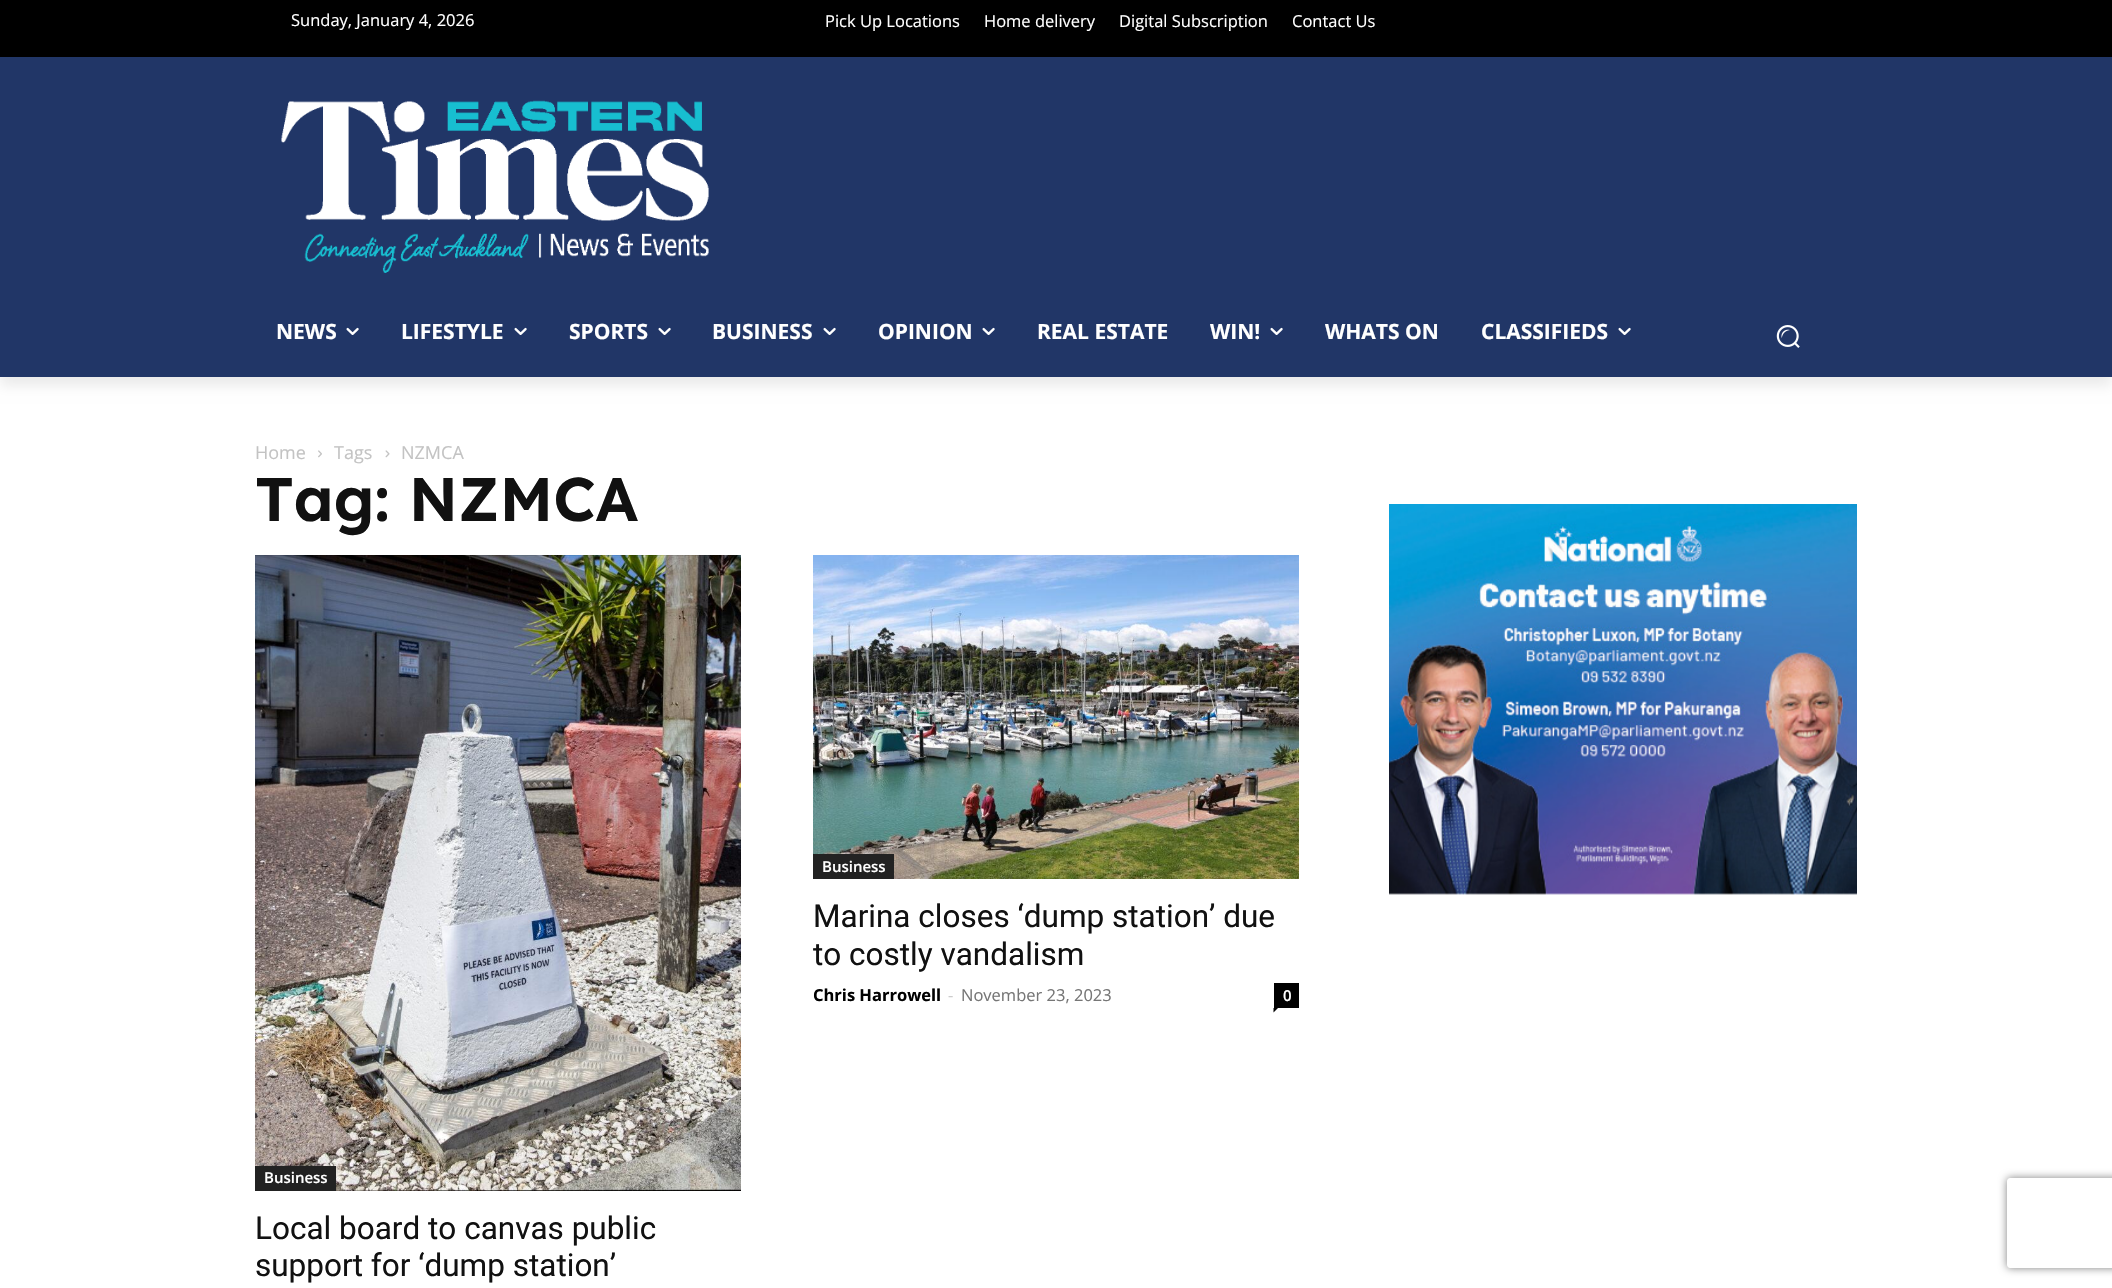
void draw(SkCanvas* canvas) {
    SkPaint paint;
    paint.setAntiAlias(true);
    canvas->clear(0xFFFFFFFF);
    paint.setColor(0xFF213667);
    canvas->drawRect(SkRect::MakeXYWH(0, 57, 2112, 320), paint);
    paint.setColor(0xFF000000);
    canvas->drawRect(SkRect::MakeXYWH(0, 0, 2112, 57), paint);
    canvas->drawImageRect(SkImages::DeferredFromEncodedData(SkData::MakeFromFileName("img1.png")), SkRect::MakeXYWH(281, 100, 428, 173), SkSamplingOptions());
    canvas->save();
    canvas->clipPath(SkPathBuilder(SkPathFillType::kEvenOdd).moveTo(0, 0).lineTo(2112, 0).lineTo(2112, 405).lineTo(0, 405).close().moveTo(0, 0).lineTo(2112, 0).lineTo(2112, 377).lineTo(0, 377).close().detach(), true);
    paint.setColor(0x14000000);
    paint.setMaskFilter(SkMaskFilter::MakeBlur(kNormal_SkBlurStyle, 6));
    canvas->drawRect(SkRect::MakeXYWH(0, 9, 2112, 377), paint);
    paint.setMaskFilter(nullptr);
    canvas->restore();
    SkFont font1(fontMgr->matchFamilyStyle("Open Sans", SkFontStyle::Normal()), 16.5f);
    font1.setSubpixel(true);
    paint.setColor(0xFFFFFFFF);
    canvas->drawString("Sunday, January 4, 2026", 291, 26, font1, paint);
    canvas->drawString("Pick Up Locations", 825, 27, font1, paint);
    canvas->drawString("Home delivery", 984, 27, font1, paint);
    canvas->drawString("Digital Subscription", 1119, 27, font1, paint);
    canvas->drawString("Contact Us", 1292, 27, font1, paint);
    SkFont font2(fontMgr->matchFamilyStyle("Open Sans", SkFontStyle::Bold()), 21);
    font2.setSubpixel(true);
    canvas->drawString("NEWS", 276, 339, font2, paint);
    canvas->drawImageRect(SkImages::DeferredFromEncodedData(SkData::MakeFromFileName("img2.png")), SkRect::MakeXYWH(346, 327, 13, 8), SkSamplingOptions());
    canvas->drawString("LIFESTYLE", 401, 339, font2, paint);
    canvas->drawImageRect(SkImages::DeferredFromEncodedData(SkData::MakeFromFileName("img2.png")), SkRect::MakeXYWH(514, 327, 13, 8), SkSamplingOptions());
    canvas->drawString("SPORTS", 569, 339, font2, paint);
    canvas->drawImageRect(SkImages::DeferredFromEncodedData(SkData::MakeFromFileName("img2.png")), SkRect::MakeXYWH(658, 327, 13, 8), SkSamplingOptions());
    canvas->drawString("BUSINESS", 712, 339, font2, paint);
    canvas->drawImageRect(SkImages::DeferredFromEncodedData(SkData::MakeFromFileName("img2.png")), SkRect::MakeXYWH(823, 327, 13, 8), SkSamplingOptions());
    canvas->drawString("OPINION", 878, 339, font2, paint);
    canvas->drawImageRect(SkImages::DeferredFromEncodedData(SkData::MakeFromFileName("img2.png")), SkRect::MakeXYWH(982, 327, 13, 8), SkSamplingOptions());
    canvas->drawString("REAL ESTATE", 1037, 339, font2, paint);
    canvas->drawString("WIN!", 1210, 339, font2, paint);
    canvas->drawImageRect(SkImages::DeferredFromEncodedData(SkData::MakeFromFileName("img2.png")), SkRect::MakeXYWH(1270, 327, 13, 8), SkSamplingOptions());
    canvas->drawString("WHATS ON", 1325, 339, font2, paint);
    canvas->drawString("CLASSIFIEDS", 1481, 339, font2, paint);
    canvas->drawImageRect(SkImages::DeferredFromEncodedData(SkData::MakeFromFileName("img2.png")), SkRect::MakeXYWH(1618, 327, 13, 8), SkSamplingOptions());
    canvas->drawImageRect(SkImages::DeferredFromEncodedData(SkData::MakeFromFileName("img3.png")), SkRect::MakeXYWH(1776, 325, 24, 23), SkSamplingOptions());
    SkFont font3(fontMgr->matchFamilyStyle("Open Sans", SkFontStyle::Normal()), 18);
    font3.setSubpixel(true);
    paint.setColor(0xFFC3C3C3);
    canvas->drawString("Home", 255, 459, font3, paint);
    canvas->drawImageRect(SkImages::DeferredFromEncodedData(SkData::MakeFromFileName("img4.png")), SkRect::MakeXYWH(318, 450, 4, 8), SkSamplingOptions());
    canvas->drawString("Tags", 334, 459, font3, paint);
    canvas->drawImageRect(SkImages::DeferredFromEncodedData(SkData::MakeFromFileName("img5.png")), SkRect::MakeXYWH(385, 450, 5, 8), SkSamplingOptions());
    canvas->drawString("NZMCA", 401, 459, font3, paint);
    SkFont font4(fontMgr->matchFamilyStyle("Lexend", SkFontStyle(600, SkFontStyle::kNormal_Width, SkFontStyle::kUpright_Slant)), 61.5f);
    font4.setSubpixel(true);
    paint.setColor(0xFF111111);
    canvas->drawString("Tag: NZMCA", 255, 521, font4, paint);
    canvas->drawImageRect(SkImages::DeferredFromEncodedData(SkData::MakeFromFileName("img6.png")), SkRect::MakeXYWH(813, 555, 486, 324), SkSamplingOptions());
    paint.setColor(0xFF222222);
    canvas->drawRect(SkRect::MakeXYWH(813, 854, 81, 25), paint);
    SkFont font5(fontMgr->matchFamilyStyle("Open Sans", SkFontStyle(600, SkFontStyle::kNormal_Width, SkFontStyle::kUpright_Slant)), 15);
    font5.setSubpixel(true);
    paint.setColor(0xFFFFFFFF);
    canvas->drawString("Business", 822, 872, font5, paint);
    SkFont font6(fontMgr->matchFamilyStyle("Roboto", SkFontStyle::Normal()), 31.5f);
    font6.setSubpixel(true);
    paint.setColor(0xFF111111);
    canvas->drawString("Marina closes ‘dump station’ due", 813, 927, font6, paint);
    canvas->drawString("to costly vandalism", 813, 965, font6, paint);
    SkFont font7(fontMgr->matchFamilyStyle("Open Sans", SkFontStyle::Bold()), 16.5f);
    font7.setSubpixel(true);
    paint.setColor(0xFF000000);
    canvas->drawString("Chris Harrowell", 813, 1001, font7, paint);
    paint.setColor(0xFFCCCCCC);
    canvas->drawString("-", 948, 1001, font1, paint);
    paint.setColor(0xFF767676);
    canvas->drawString("November 23, 2023", 961, 1001, font1, paint);
    paint.setColor(0xFF000000);
    canvas->drawRect(SkRect::MakeXYWH(1274, 983, 25, 25), paint);
    paint.setColor(0xFFFFFFFF);
    canvas->drawString("0", 1283, 1001, font5, paint);
    paint.setColor(0xFF000000);
    canvas->drawPath(SkPathBuilder().moveTo(1273.5f, 1008).lineTo(1278, 1008).lineTo(1273.5f, 1012.5f).close().detach(), paint);
    canvas->drawImageRect(SkImages::DeferredFromEncodedData(SkData::MakeFromFileName("img7.png")), SkRect::MakeXYWH(255, 555, 486, 636), SkSamplingOptions());
    paint.setColor(0xFF222222);
    canvas->drawRect(SkRect::MakeXYWH(255, 1166, 81, 25), paint);
    paint.setColor(0xFFFFFFFF);
    canvas->drawString("Business", 264, 1183, font5, paint);
    paint.setColor(0xFF111111);
    canvas->drawString("Local board to canvas public", 255, 1239, font6, paint);
    canvas->drawString("support for ‘dump station’", 255, 1276, font6, paint);
    canvas->drawImageRect(SkImages::DeferredFromEncodedData(SkData::MakeFromFileName("img8.png")), SkRect::MakeXYWH(1389, 504, 468, 391), SkSamplingOptions());
    canvas->save();
    canvas->clipPath(SkPathBuilder(SkPathFillType::kEvenOdd).moveTo(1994, 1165).lineTo(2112, 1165).lineTo(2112, 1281).lineTo(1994, 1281).close().moveTo(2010, 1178).lineTo(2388, 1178).cubicTo(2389.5f, 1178, 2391, 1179.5f, 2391, 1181).lineTo(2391, 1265).cubicTo(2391, 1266.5f, 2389.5f, 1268, 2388, 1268).lineTo(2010, 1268).cubicTo(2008.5f, 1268, 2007, 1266.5f, 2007, 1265).lineTo(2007, 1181).cubicTo(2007, 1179.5f, 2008.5f, 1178, 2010, 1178).close().detach(), true);
    paint.setColor(0xFF808080);
    paint.setMaskFilter(SkMaskFilter::MakeBlur(kNormal_SkBlurStyle, 4));
    canvas->drawRoundRect(SkRect::MakeXYWH(2007, 1178, 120, 90), 3, 3, paint);
    paint.setMaskFilter(nullptr);
    canvas->restore();
}
